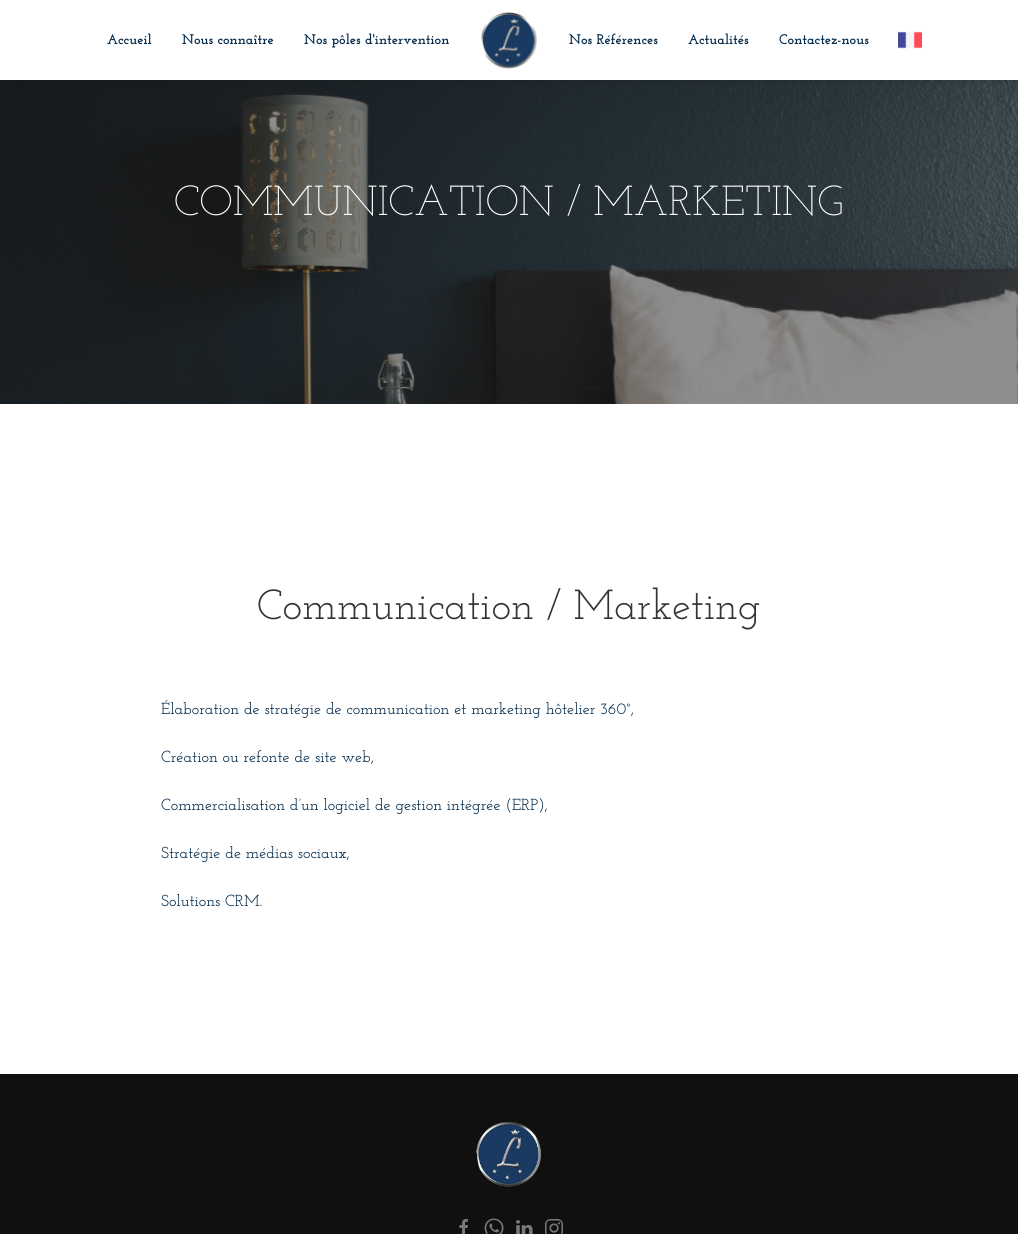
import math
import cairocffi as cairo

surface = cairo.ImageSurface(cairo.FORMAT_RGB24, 1018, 1234)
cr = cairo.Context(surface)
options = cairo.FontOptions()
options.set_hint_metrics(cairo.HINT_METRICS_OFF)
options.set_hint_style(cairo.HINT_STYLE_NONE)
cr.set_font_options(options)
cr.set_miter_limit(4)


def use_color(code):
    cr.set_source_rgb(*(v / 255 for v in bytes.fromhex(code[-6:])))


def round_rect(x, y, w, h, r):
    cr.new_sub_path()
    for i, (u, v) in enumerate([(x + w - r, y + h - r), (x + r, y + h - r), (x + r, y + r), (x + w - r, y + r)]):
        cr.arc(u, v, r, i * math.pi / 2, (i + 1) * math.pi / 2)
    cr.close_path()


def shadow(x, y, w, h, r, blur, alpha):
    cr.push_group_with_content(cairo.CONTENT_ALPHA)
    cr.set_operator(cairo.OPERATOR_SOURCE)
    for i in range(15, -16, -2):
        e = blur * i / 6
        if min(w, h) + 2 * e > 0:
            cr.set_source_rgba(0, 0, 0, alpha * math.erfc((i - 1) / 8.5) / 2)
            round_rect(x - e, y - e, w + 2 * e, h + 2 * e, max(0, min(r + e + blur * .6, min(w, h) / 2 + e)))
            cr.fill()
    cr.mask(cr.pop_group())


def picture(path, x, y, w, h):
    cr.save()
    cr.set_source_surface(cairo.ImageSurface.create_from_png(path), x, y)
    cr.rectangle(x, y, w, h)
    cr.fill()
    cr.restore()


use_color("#ffffff")
cr.paint()
picture("img3.png", 0, 80, 1018, 324)
use_color("#000000")
shadow(0, 2, 1018, 80, 0, 4, 0.08)
use_color("#ffffff")
cr.rectangle(0, 0, 1018, 80)
cr.fill()
cr.select_font_face("Josefin Slab", cairo.FONT_SLANT_NORMAL, cairo.FONT_WEIGHT_BOLD)
cr.set_font_size(14)
use_color("#062d4e")
cr.move_to(107, 44)
cr.show_text("Accueil")
cr.move_to(182, 44)
cr.show_text("Nous connaître")
cr.move_to(304, 44)
cr.show_text("Nos pôles d'intervention")
picture("img1.png", 481, 12, 56, 57)
cr.move_to(569, 44)
cr.show_text("Nos Références")
cr.move_to(688, 44)
cr.show_text("Actualités")
cr.move_to(779, 44)
cr.show_text("Contactez-nous")
picture("img2.png", 898, 31, 24, 18)
cr.select_font_face("Josefin Slab Light")
cr.set_font_size(42)
use_color("#ffffff")
cr.move_to(174, 215)
cr.show_text("COMMUNICATION / MARKETING")
cr.select_font_face("Josefin Slab")
use_color("#333333")
cr.move_to(257, 619)
cr.show_text("Communication / Marketing")
cr.select_font_face("Josefin Slab Medium")
cr.set_font_size(16)
use_color("#062d4e")
cr.move_to(161, 714)
cr.show_text("Élaboration de stratégie de communication et marketing hôtelier 360°,")
cr.move_to(161, 762)
cr.show_text("Création ou refonte de site web,")
cr.move_to(161, 810)
cr.show_text("Commercialisation d’un logiciel de gestion intégrée (ERP),")
cr.move_to(161, 858)
cr.show_text("Stratégie de médias sociaux,")
cr.move_to(161, 906)
cr.show_text("Solutions CRM.")
use_color("#101010")
cr.rectangle(0, 1074, 1018, 160)
cr.fill()
picture("img4.png", 476, 1121, 65, 66)
picture("img5.png", 459, 1219, 9, 15)
picture("img6.png", 484, 1218, 20, 16)
picture("img7.png", 516, 1220, 17, 14)
picture("img8.png", 545, 1219, 18, 15)
surface.write_to_png("result.png")
